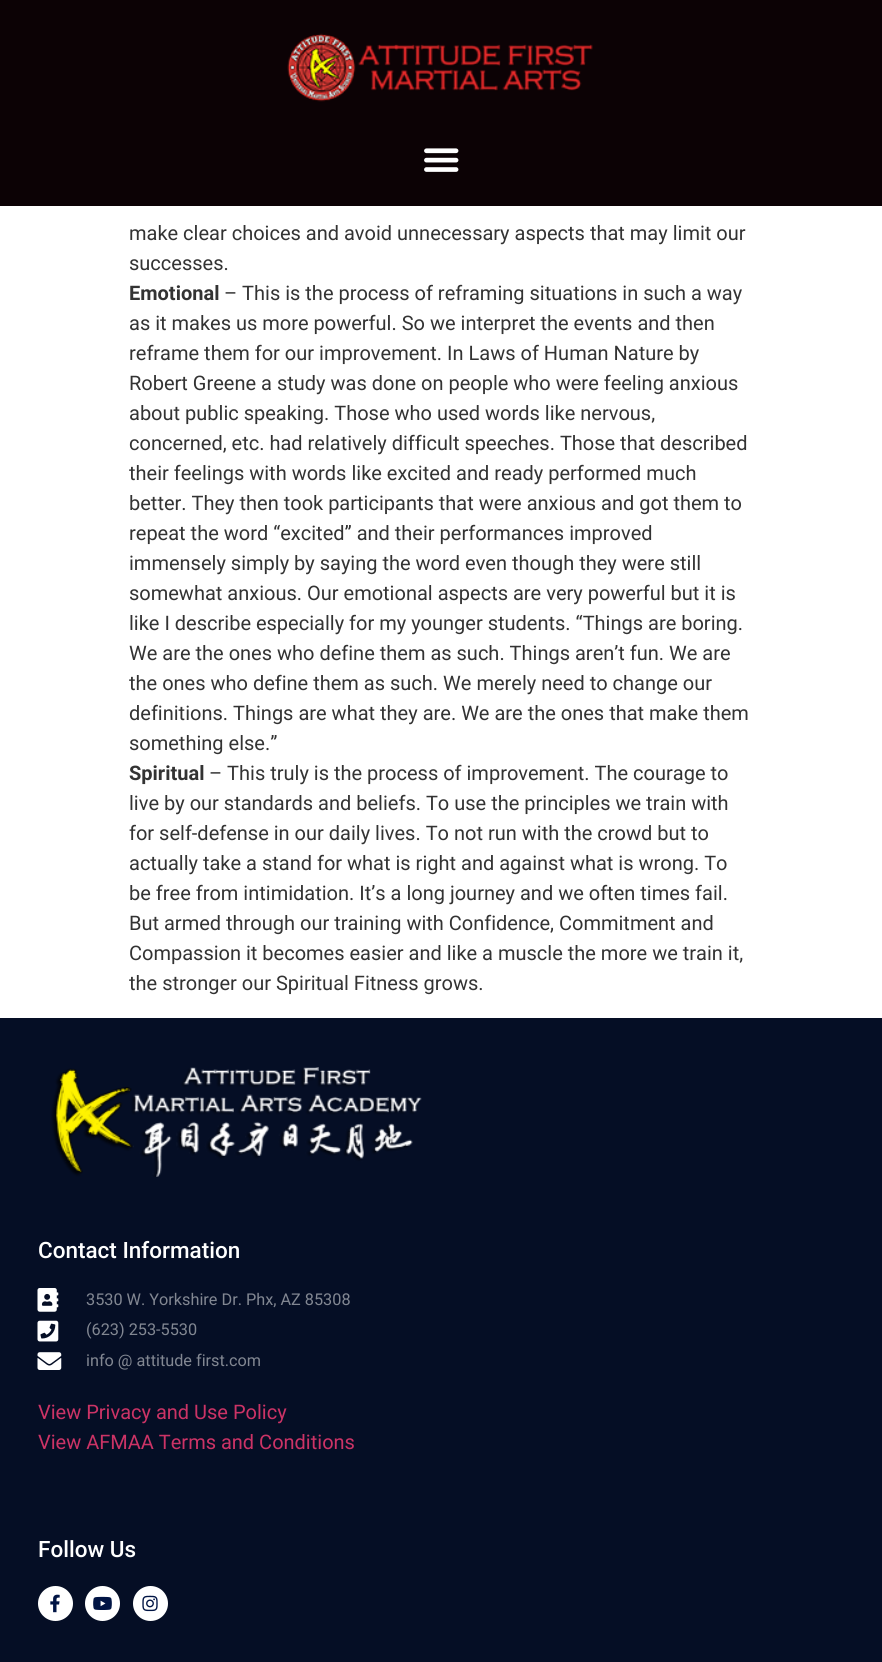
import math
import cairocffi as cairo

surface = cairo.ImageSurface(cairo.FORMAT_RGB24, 882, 1662)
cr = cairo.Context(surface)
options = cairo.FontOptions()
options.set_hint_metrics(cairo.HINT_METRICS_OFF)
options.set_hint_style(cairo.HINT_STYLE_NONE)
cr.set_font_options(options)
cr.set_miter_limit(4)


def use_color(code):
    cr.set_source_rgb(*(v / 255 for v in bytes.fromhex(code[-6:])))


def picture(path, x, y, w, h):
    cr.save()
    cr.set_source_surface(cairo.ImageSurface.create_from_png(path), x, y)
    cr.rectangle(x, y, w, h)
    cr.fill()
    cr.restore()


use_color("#ffffff")
cr.paint()
use_color("#0c0205")
cr.rectangle(0, 0, 882, 206)
cr.fill()
picture("img1.png", 287, 33, 306, 69)
picture("img2.png", 424, 148, 35, 24)
cr.select_font_face("Roboto")
cr.set_font_size(20)
use_color("#333333")
cr.move_to(129, 240)
cr.show_text("make clear choices and avoid unnecessary aspects that may limit our")
cr.move_to(129, 270)
cr.show_text("successes.")
cr.select_font_face("Roboto", cairo.FONT_SLANT_NORMAL, cairo.FONT_WEIGHT_BOLD)
cr.move_to(129, 300)
cr.show_text("Emotional")
cr.select_font_face("Roboto")
cr.move_to(224, 300)
cr.show_text("– This is the process of reframing situations in such a way")
cr.move_to(129, 330)
cr.show_text("as it makes us more powerful. So we interpret the events and then")
cr.move_to(129, 360)
cr.show_text("reframe them for our improvement. In Laws of Human Nature by")
cr.move_to(129, 390)
cr.show_text("Robert Greene a study was done on people who were feeling anxious")
cr.move_to(129, 420)
cr.show_text("about public speaking. Those who used words like nervous,")
cr.move_to(129, 450)
cr.show_text("concerned, etc. had relatively difficult speeches. Those that described")
cr.move_to(129, 480)
cr.show_text("their feelings with words like excited and ready performed much")
cr.move_to(129, 510)
cr.show_text("better. They then took participants that were anxious and got them to")
cr.move_to(129, 540)
cr.show_text("repeat the word “excited” and their performances improved")
cr.move_to(129, 570)
cr.show_text("immensely simply by saying the word even though they were still")
cr.move_to(129, 600)
cr.show_text("somewhat anxious. Our emotional aspects are very powerful but it is")
cr.move_to(129, 630)
cr.show_text("like I describe especially for my younger students. “Things are boring.")
cr.move_to(129, 660)
cr.show_text("We are the ones who define them as such. Things aren’t fun. We are")
cr.move_to(129, 690)
cr.show_text("the ones who define them as such. We merely need to change our")
cr.move_to(129, 720)
cr.show_text("definitions. Things are what they are. We are the ones that make them")
cr.move_to(129, 750)
cr.show_text("something else.”")
cr.select_font_face("Roboto", cairo.FONT_SLANT_NORMAL, cairo.FONT_WEIGHT_BOLD)
cr.move_to(129, 780)
cr.show_text("Spiritual")
cr.select_font_face("Roboto")
cr.move_to(209, 780)
cr.show_text("– This truly is the process of improvement. The courage to")
cr.move_to(129, 810)
cr.show_text("live by our standards and beliefs. To use the principles we train with")
cr.move_to(129, 840)
cr.show_text("for self-defense in our daily lives. To not run with the crowd but to")
cr.move_to(129, 870)
cr.show_text("actually take a stand for what is right and against what is wrong. To")
cr.move_to(129, 900)
cr.show_text("be free from intimidation. It’s a long journey and we often times fail.")
cr.move_to(129, 930)
cr.show_text("But armed through our training with Confidence, Commitment and")
cr.move_to(129, 960)
cr.show_text("Compassion it becomes easier and like a muscle the more we train it,")
cr.move_to(129, 990)
cr.show_text("the stronger our Spiritual Fitness grows.")
use_color("#050e25")
cr.rectangle(0, 1018, 882, 644)
cr.fill()
picture("img3.png", 51, 1067, 371, 110)
cr.select_font_face("Roboto Medium")
cr.set_font_size(22.5)
use_color("#ffffff")
cr.move_to(38, 1258)
cr.show_text("Contact Information")
picture("img4.png", 37, 1288, 22, 24)
cr.select_font_face("Roboto")
cr.set_font_size(16.25)
use_color("#828792")
cr.move_to(86, 1305)
cr.show_text("3530 W. Yorkshire Dr. Phx, AZ 85308")
picture("img5.png", 37, 1320, 22, 22)
cr.move_to(86, 1335)
cr.show_text("(623) 253-5530")
picture("img6.png", 37, 1352, 25, 18)
cr.move_to(86, 1366)
cr.show_text("info @ attitude first.com")
cr.set_font_size(20)
use_color("#cc3366")
cr.move_to(38, 1419)
cr.show_text("View Privacy and Use Policy")
cr.move_to(38, 1449)
cr.show_text("View AFMAA Terms and Conditions")
cr.select_font_face("Roboto Medium")
cr.set_font_size(22.5)
use_color("#ffffff")
cr.move_to(38, 1557)
cr.show_text("Follow Us")
cr.new_path()
cr.arc(55.5, 1603.5, 17.5, 0, 2 * math.pi)
cr.fill()
picture("img7.png", 50, 1594, 10, 19)
cr.arc(102.5, 1603.5, 17.5, 0, 2 * math.pi)
cr.fill()
picture("img8.png", 93, 1596, 19, 14)
cr.arc(150.5, 1603.5, 17.5, 0, 2 * math.pi)
cr.fill()
picture("img9.png", 142, 1595, 16, 17)
surface.write_to_png("result.png")
